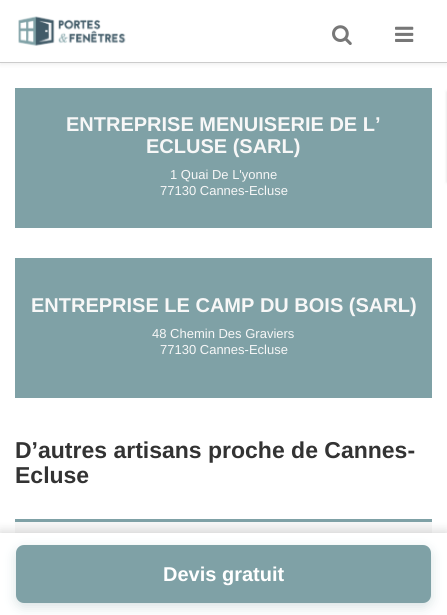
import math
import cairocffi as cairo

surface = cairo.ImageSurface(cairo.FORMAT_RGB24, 447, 615)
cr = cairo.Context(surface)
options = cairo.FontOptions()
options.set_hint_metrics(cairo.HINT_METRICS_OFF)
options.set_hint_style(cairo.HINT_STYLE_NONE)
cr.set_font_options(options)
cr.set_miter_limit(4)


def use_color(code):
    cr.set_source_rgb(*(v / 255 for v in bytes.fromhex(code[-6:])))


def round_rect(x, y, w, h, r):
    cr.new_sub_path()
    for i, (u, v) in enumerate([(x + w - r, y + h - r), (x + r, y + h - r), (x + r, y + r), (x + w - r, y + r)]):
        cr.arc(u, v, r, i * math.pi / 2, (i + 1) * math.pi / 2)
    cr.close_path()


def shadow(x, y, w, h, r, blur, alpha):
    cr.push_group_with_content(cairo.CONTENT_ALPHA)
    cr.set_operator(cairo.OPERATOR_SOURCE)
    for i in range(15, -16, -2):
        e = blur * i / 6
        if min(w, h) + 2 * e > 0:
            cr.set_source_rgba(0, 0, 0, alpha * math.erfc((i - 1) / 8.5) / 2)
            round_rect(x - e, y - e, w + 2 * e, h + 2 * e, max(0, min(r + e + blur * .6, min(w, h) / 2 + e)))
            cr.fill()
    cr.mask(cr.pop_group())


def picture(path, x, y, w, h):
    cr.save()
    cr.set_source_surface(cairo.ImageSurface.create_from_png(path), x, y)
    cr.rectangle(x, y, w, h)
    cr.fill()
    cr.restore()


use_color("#ffffff")
cr.paint()
use_color("#000000")
shadow(0, 2, 447, 63, 0, 2, 0.06)
use_color("#ffffff")
cr.rectangle(0, 0, 447, 62)
cr.fill()
use_color("#cccccc")
cr.rectangle(0, 62, 447, 1)
cr.fill()
picture("img1.png", 18, 16, 108, 30)
picture("img2.png", 332, 25, 20, 20)
picture("img3.png", 395, 26, 19, 16)
use_color("#000000")
shadow(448, 92, 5, 90, 0, 2, 0.24)
use_color("#7fa1a6")
cr.rectangle(15, 88, 417, 140)
cr.fill()
cr.select_font_face("Liberation Sans", cairo.FONT_SLANT_NORMAL, cairo.FONT_WEIGHT_BOLD)
cr.set_font_size(20)
use_color("#f7f7f7")
cr.move_to(66, 131)
cr.show_text("ENTREPRISE MENUISERIE DE L’")
cr.move_to(146, 153)
cr.show_text("ECLUSE (SARL)")
cr.select_font_face("Liberation Sans")
cr.set_font_size(13)
cr.move_to(170, 179)
cr.show_text("1 Quai De L'yonne")
cr.move_to(160, 195)
cr.show_text("77130 Cannes-Ecluse")
use_color("#7fa1a6")
cr.rectangle(15, 258, 417, 140)
cr.fill()
cr.select_font_face("Liberation Sans", cairo.FONT_SLANT_NORMAL, cairo.FONT_WEIGHT_BOLD)
cr.set_font_size(20)
use_color("#f7f7f7")
cr.move_to(31, 312)
cr.show_text("ENTREPRISE LE CAMP DU BOIS (SARL)")
cr.select_font_face("Liberation Sans")
cr.set_font_size(13)
cr.move_to(152, 338)
cr.show_text("48 Chemin Des Graviers")
cr.move_to(160, 354)
cr.show_text("77130 Cannes-Ecluse")
cr.select_font_face("Liberation Sans", cairo.FONT_SLANT_NORMAL, cairo.FONT_WEIGHT_BOLD)
cr.set_font_size(23)
use_color("#333333")
cr.move_to(15, 458)
cr.show_text("D’autres artisans proche de Cannes-")
cr.move_to(15, 483)
cr.show_text("Ecluse")
use_color("#f7f7f7")
cr.rectangle(15, 522, 417, 11)
cr.fill()
use_color("#7fa1a6")
cr.rectangle(15, 519, 417, 3)
cr.fill()
use_color("#000000")
shadow(0, 531, 447, 82, 0, 5, 0.15)
use_color("#ffffff")
cr.rectangle(0, 533, 447, 82)
cr.fill()
use_color("#7fa1a6")
shadow(16, 549, 415, 58, 8, 6, 0.3)
use_color("#7fa1a6")
round_rect(16, 545, 415, 58, 8)
cr.fill()
cr.set_font_size(20)
use_color("#ffffff")
cr.move_to(163, 581)
cr.show_text("Devis gratuit")
surface.write_to_png("result.png")
